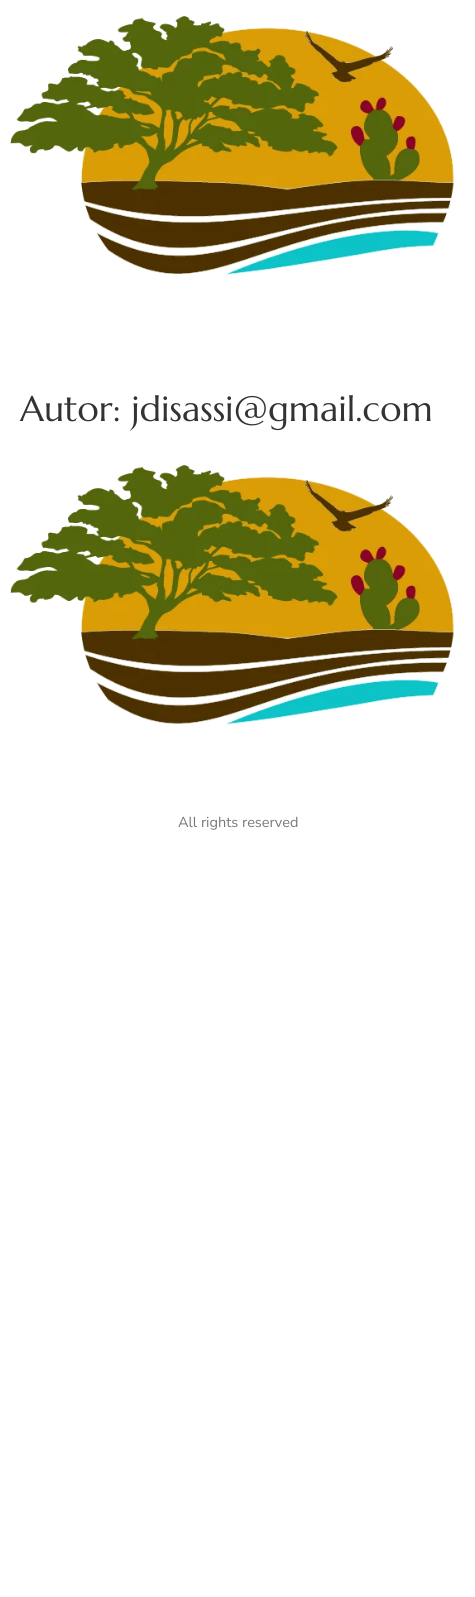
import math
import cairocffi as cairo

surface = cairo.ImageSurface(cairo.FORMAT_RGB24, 475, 1597)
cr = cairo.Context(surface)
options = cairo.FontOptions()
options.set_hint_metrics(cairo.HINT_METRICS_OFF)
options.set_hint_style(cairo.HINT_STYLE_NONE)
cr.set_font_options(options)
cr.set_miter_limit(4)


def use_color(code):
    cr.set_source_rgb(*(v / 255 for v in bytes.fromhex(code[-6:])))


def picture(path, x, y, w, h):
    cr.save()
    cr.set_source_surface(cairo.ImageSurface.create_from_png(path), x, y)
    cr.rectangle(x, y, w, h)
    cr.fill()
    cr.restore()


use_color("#ffffff")
cr.paint()
picture("img1.png", 10, 16, 444, 259)
cr.select_font_face("Marcellus")
cr.set_font_size(35.25)
use_color("#333333")
cr.move_to(20, 421)
cr.show_text("Autor: jdisassi@gmail.com")
picture("img2.png", 10, 465, 444, 260)
cr.select_font_face("Nunito Sans")
cr.set_font_size(14.5)
use_color("#777777")
cr.move_to(178, 827)
cr.show_text("All rights reserved")
surface.write_to_png("result.png")
